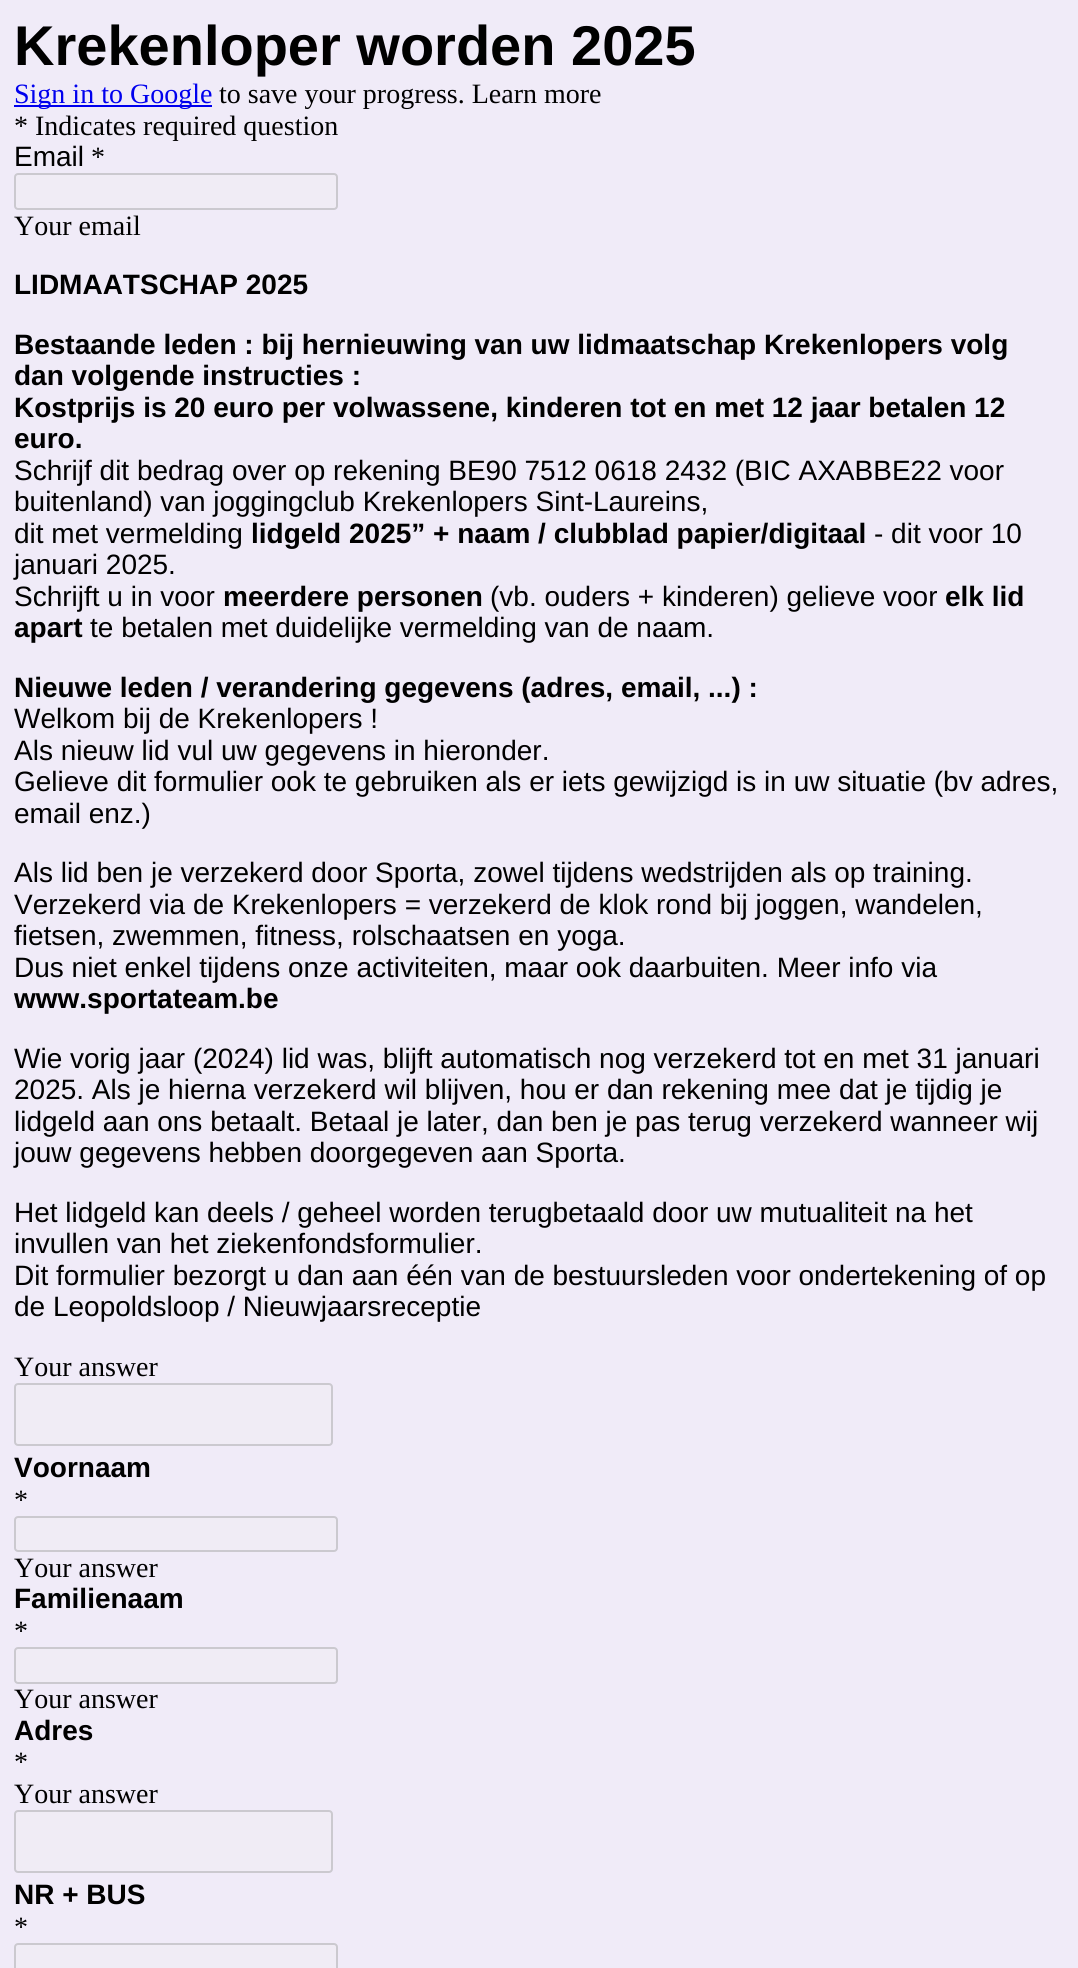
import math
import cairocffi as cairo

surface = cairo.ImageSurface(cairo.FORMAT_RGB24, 1078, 1968)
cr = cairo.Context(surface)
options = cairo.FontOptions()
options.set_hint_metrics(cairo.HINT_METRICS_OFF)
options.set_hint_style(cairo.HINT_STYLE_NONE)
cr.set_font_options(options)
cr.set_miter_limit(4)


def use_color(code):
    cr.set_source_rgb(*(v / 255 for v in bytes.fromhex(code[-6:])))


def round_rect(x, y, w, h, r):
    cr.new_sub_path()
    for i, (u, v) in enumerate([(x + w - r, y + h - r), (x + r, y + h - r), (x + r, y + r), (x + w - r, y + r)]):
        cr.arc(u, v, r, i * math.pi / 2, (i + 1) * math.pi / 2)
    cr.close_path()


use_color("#f0ebf8")
cr.paint()
cr.select_font_face("Liberation Sans", cairo.FONT_SLANT_NORMAL, cairo.FONT_WEIGHT_BOLD)
cr.set_font_size(56)
use_color("#000000")
cr.move_to(14, 65)
cr.show_text("Krekenloper worden 2025")
use_color("#0000ee")
cr.rectangle(14, 105, 198, 2)
cr.fill()
cr.select_font_face("Liberation Serif")
cr.set_font_size(28)
cr.move_to(14, 103)
cr.show_text("Sign in to Google")
use_color("#000000")
cr.move_to(219, 103)
cr.show_text("to save your progress. Learn more")
cr.move_to(14, 135)
cr.show_text("* Indicates required question")
cr.select_font_face("Liberation Sans")
cr.move_to(14, 166)
cr.show_text("Email")
cr.select_font_face("Liberation Serif")
cr.move_to(91, 166)
cr.show_text("*")
use_color("#f0ecf5")
round_rect(15, 174, 322, 35, 3)
cr.fill_preserve()
use_color("#cbc9cf")
cr.stroke()
use_color("#000000")
cr.move_to(14, 235)
cr.show_text("Your email")
cr.select_font_face("Liberation Sans", cairo.FONT_SLANT_NORMAL, cairo.FONT_WEIGHT_BOLD)
cr.move_to(14, 294)
cr.show_text("LIDMAATSCHAP 2025")
cr.move_to(14, 354)
cr.show_text("Bestaande leden : bij hernieuwing van uw lidmaatschap Krekenlopers volg")
cr.move_to(14, 385)
cr.show_text("dan volgende instructies :")
cr.move_to(14, 417)
cr.show_text("Kostprijs is 20 euro per volwassene, kinderen tot en met 12 jaar betalen 12")
cr.move_to(14, 448)
cr.show_text("euro.")
cr.select_font_face("Liberation Sans")
cr.move_to(14, 480)
cr.show_text("Schrijf dit bedrag over op rekening BE90 7512 0618 2432 (BIC AXABBE22 voor")
cr.move_to(14, 511)
cr.show_text("buitenland) van joggingclub Krekenlopers Sint-Laureins,")
cr.move_to(14, 543)
cr.show_text("dit met vermelding")
cr.select_font_face("Liberation Sans", cairo.FONT_SLANT_NORMAL, cairo.FONT_WEIGHT_BOLD)
cr.move_to(251, 543)
cr.show_text("lidgeld 2025” + naam / clubblad papier/digitaal")
cr.select_font_face("Liberation Sans")
cr.move_to(874, 543)
cr.show_text("- dit voor 10")
cr.move_to(14, 574)
cr.show_text("januari 2025.")
cr.move_to(14, 606)
cr.show_text("Schrijft u in voor")
cr.select_font_face("Liberation Sans", cairo.FONT_SLANT_NORMAL, cairo.FONT_WEIGHT_BOLD)
cr.move_to(223, 606)
cr.show_text("meerdere personen")
cr.select_font_face("Liberation Sans")
cr.move_to(490, 606)
cr.show_text("(vb. ouders + kinderen) gelieve voor")
cr.select_font_face("Liberation Sans", cairo.FONT_SLANT_NORMAL, cairo.FONT_WEIGHT_BOLD)
cr.move_to(945, 606)
cr.show_text("elk lid")
cr.move_to(14, 637)
cr.show_text("apart")
cr.select_font_face("Liberation Sans")
cr.move_to(90, 637)
cr.show_text("te betalen met duidelijke vermelding van de naam.")
cr.select_font_face("Liberation Sans", cairo.FONT_SLANT_NORMAL, cairo.FONT_WEIGHT_BOLD)
cr.move_to(14, 697)
cr.show_text("Nieuwe leden / verandering gegevens (adres, email, ...) :")
cr.select_font_face("Liberation Sans")
cr.move_to(14, 728)
cr.show_text("Welkom bij de Krekenlopers !")
cr.move_to(14, 760)
cr.show_text("Als nieuw lid vul uw gegevens in hieronder.")
cr.move_to(14, 791)
cr.show_text("Gelieve dit formulier ook te gebruiken als er iets gewijzigd is in uw situatie (bv adres,")
cr.move_to(14, 823)
cr.show_text("email enz.)")
cr.move_to(14, 882)
cr.show_text("Als lid ben je verzekerd door Sporta, zowel tijdens wedstrijden als op training.")
cr.move_to(14, 914)
cr.show_text("Verzekerd via de Krekenlopers = verzekerd de klok rond bij joggen, wandelen,")
cr.move_to(14, 945)
cr.show_text("fietsen, zwemmen, fitness, rolschaatsen en yoga.")
cr.move_to(14, 977)
cr.show_text("Dus niet enkel tijdens onze activiteiten, maar ook daarbuiten. Meer info via")
cr.select_font_face("Liberation Sans", cairo.FONT_SLANT_NORMAL, cairo.FONT_WEIGHT_BOLD)
cr.move_to(14, 1008)
cr.show_text("www.sportateam.be")
cr.select_font_face("Liberation Sans")
cr.move_to(14, 1068)
cr.show_text("Wie vorig jaar (2024) lid was, blijft automatisch nog verzekerd tot en met 31 januari")
cr.move_to(14, 1099)
cr.show_text("2025. Als je hierna verzekerd wil blijven, hou er dan rekening mee dat je tijdig je")
cr.move_to(14, 1131)
cr.show_text("lidgeld aan ons betaalt. Betaal je later, dan ben je pas terug verzekerd wanneer wij")
cr.move_to(14, 1162)
cr.show_text("jouw gegevens hebben doorgegeven aan Sporta.")
cr.move_to(14, 1222)
cr.show_text("Het lidgeld kan deels / geheel worden terugbetaald door uw mutualiteit na het")
cr.move_to(14, 1253)
cr.show_text("invullen van het ziekenfondsformulier.")
cr.move_to(14, 1285)
cr.show_text("Dit formulier bezorgt u dan aan één van de bestuursleden voor ondertekening of op")
cr.move_to(14, 1316)
cr.show_text("de Leopoldsloop / Nieuwjaarsreceptie")
cr.select_font_face("Liberation Serif")
cr.move_to(14, 1376)
cr.show_text("Your answer")
use_color("#f0ecf5")
round_rect(15, 1384, 317, 61, 3)
cr.fill_preserve()
use_color("#cbc9cf")
cr.stroke()
cr.select_font_face("Liberation Sans", cairo.FONT_SLANT_NORMAL, cairo.FONT_WEIGHT_BOLD)
use_color("#000000")
cr.move_to(14, 1477)
cr.show_text("Voornaam")
cr.select_font_face("Liberation Serif")
cr.move_to(14, 1509)
cr.show_text("*")
use_color("#f0ecf5")
round_rect(15, 1517, 322, 34, 3)
cr.fill_preserve()
use_color("#cbc9cf")
cr.stroke()
use_color("#000000")
cr.move_to(14, 1577)
cr.show_text("Your answer")
cr.select_font_face("Liberation Sans", cairo.FONT_SLANT_NORMAL, cairo.FONT_WEIGHT_BOLD)
cr.move_to(14, 1608)
cr.show_text("Familienaam")
cr.select_font_face("Liberation Serif")
cr.move_to(14, 1640)
cr.show_text("*")
use_color("#f0ecf5")
round_rect(15, 1648, 322, 35, 3)
cr.fill_preserve()
use_color("#cbc9cf")
cr.stroke()
use_color("#000000")
cr.move_to(14, 1708)
cr.show_text("Your answer")
cr.select_font_face("Liberation Sans", cairo.FONT_SLANT_NORMAL, cairo.FONT_WEIGHT_BOLD)
cr.move_to(14, 1740)
cr.show_text("Adres")
cr.select_font_face("Liberation Serif")
cr.move_to(14, 1771)
cr.show_text("*")
cr.move_to(14, 1803)
cr.show_text("Your answer")
use_color("#f0ecf5")
round_rect(15, 1811, 317, 61, 3)
cr.fill_preserve()
use_color("#cbc9cf")
cr.stroke()
cr.select_font_face("Liberation Sans", cairo.FONT_SLANT_NORMAL, cairo.FONT_WEIGHT_BOLD)
use_color("#000000")
cr.move_to(14, 1904)
cr.show_text("NR + BUS")
cr.select_font_face("Liberation Serif")
cr.move_to(14, 1936)
cr.show_text("*")
use_color("#f0ecf5")
round_rect(15, 1944, 322, 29, 3)
cr.fill_preserve()
use_color("#cbc9cf")
cr.stroke()
surface.write_to_png("result.png")
